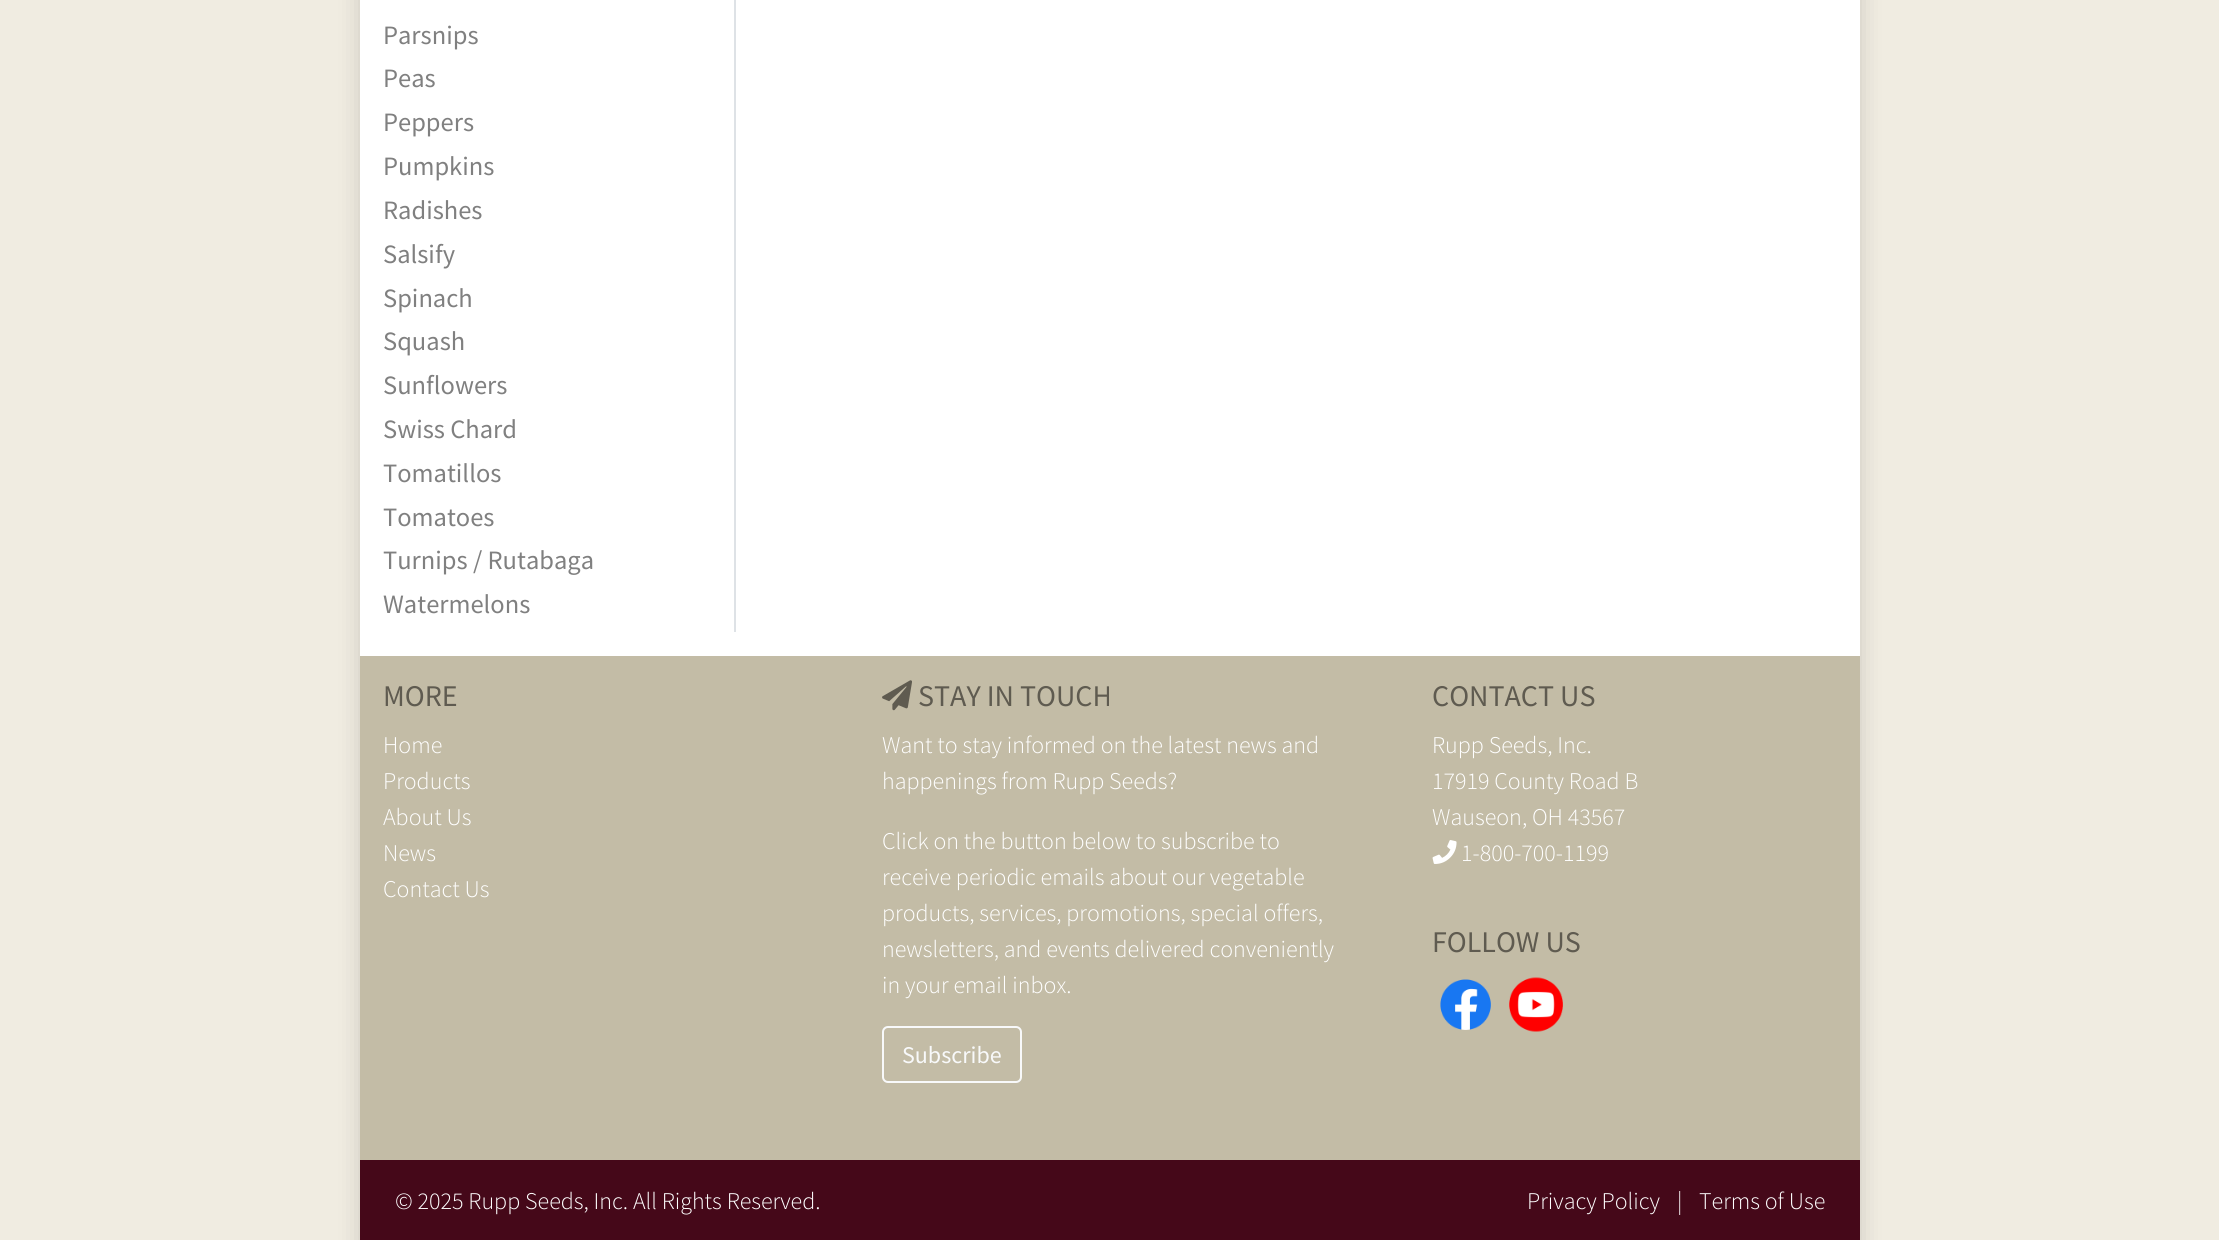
import math
import cairocffi as cairo

surface = cairo.ImageSurface(cairo.FORMAT_RGB24, 2219, 1240)
cr = cairo.Context(surface)
options = cairo.FontOptions()
options.set_hint_metrics(cairo.HINT_METRICS_OFF)
options.set_hint_style(cairo.HINT_STYLE_NONE)
cr.set_font_options(options)
cr.set_miter_limit(4)


def use_color(code):
    cr.set_source_rgb(*(v / 255 for v in bytes.fromhex(code[-6:])))


def round_rect(x, y, w, h, r):
    cr.new_sub_path()
    for i, (u, v) in enumerate([(x + w - r, y + h - r), (x + r, y + h - r), (x + r, y + r), (x + w - r, y + r)]):
        cr.arc(u, v, r, i * math.pi / 2, (i + 1) * math.pi / 2)
    cr.close_path()


def shadow(x, y, w, h, r, blur, alpha):
    cr.push_group_with_content(cairo.CONTENT_ALPHA)
    cr.set_operator(cairo.OPERATOR_SOURCE)
    for i in range(15, -16, -2):
        e = blur * i / 6
        if min(w, h) + 2 * e > 0:
            cr.set_source_rgba(0, 0, 0, alpha * math.erfc((i - 1) / 8.5) / 2)
            round_rect(x - e, y - e, w + 2 * e, h + 2 * e, max(0, min(r + e + blur * .6, min(w, h) / 2 + e)))
            cr.fill()
    cr.mask(cr.pop_group())


def picture(path, x, y, w, h):
    cr.save()
    cr.set_source_surface(cairo.ImageSurface.create_from_png(path), x, y)
    cr.rectangle(x, y, w, h)
    cr.fill()
    cr.restore()


use_color("#f0ece1")
cr.paint()
use_color("#000000")
shadow(360, -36, 1500, 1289, 0, 12, 0.15)
use_color("#ffffff")
cr.rectangle(360, 0, 1500, 656)
cr.fill()
use_color("#dee2e6")
cr.rectangle(734, 0, 2, 632)
cr.fill()
cr.select_font_face("Source Sans Pro")
cr.set_font_size(26.5)
use_color("#808080")
cr.move_to(383, 44)
cr.show_text("Parsnips")
cr.move_to(383, 87)
cr.show_text("Peas")
cr.move_to(383, 131)
cr.show_text("Peppers")
cr.move_to(383, 175)
cr.show_text("Pumpkins")
cr.move_to(383, 219)
cr.show_text("Radishes")
cr.move_to(383, 263)
cr.show_text("Salsify")
cr.move_to(383, 307)
cr.show_text("Spinach")
cr.move_to(383, 350)
cr.show_text("Squash")
cr.move_to(383, 394)
cr.show_text("Sunflowers")
cr.move_to(383, 438)
cr.show_text("Swiss Chard")
cr.move_to(383, 482)
cr.show_text("Tomatillos")
cr.move_to(383, 526)
cr.show_text("Tomatoes")
cr.move_to(383, 569)
cr.show_text("Turnips / Rutabaga")
cr.move_to(383, 613)
cr.show_text("Watermelons")
use_color("#c3bca6")
cr.rectangle(360, 656, 1500, 504)
cr.fill()
cr.set_font_size(30)
use_color("#5f5b50")
cr.move_to(383, 706)
cr.show_text("MORE")
cr.select_font_face("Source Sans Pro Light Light")
cr.set_font_size(24)
use_color("#ffffff")
cr.move_to(383, 753)
cr.show_text("Home")
cr.move_to(383, 789)
cr.show_text("Products")
cr.move_to(383, 825)
cr.show_text("About Us")
cr.move_to(383, 861)
cr.show_text("News")
cr.move_to(383, 897)
cr.show_text("Contact Us")
picture("img1.png", 882, 680, 30, 31)
cr.select_font_face("Source Sans Pro")
cr.set_font_size(30)
use_color("#5f5b50")
cr.move_to(918, 706)
cr.show_text("STAY IN TOUCH")
cr.select_font_face("Source Sans Pro Light Light")
cr.set_font_size(24)
use_color("#ffffff")
cr.move_to(882, 753)
cr.show_text("Want to stay informed on the latest news and")
cr.move_to(882, 789)
cr.show_text("happenings from Rupp Seeds?")
cr.move_to(882, 849)
cr.show_text("Click on the button below to subscribe to")
cr.move_to(882, 885)
cr.show_text("receive periodic emails about our vegetable")
cr.move_to(882, 921)
cr.show_text("products, services, promotions, special offers,")
cr.move_to(882, 957)
cr.show_text("newsletters, and events delivered conveniently")
cr.move_to(882, 993)
cr.show_text("in your email inbox.")
round_rect(883, 1027, 138, 55, 5)
use_color("#f8f9fa")
cr.stroke()
cr.select_font_face("Source Sans Pro")
cr.move_to(902, 1063)
cr.show_text("Subscribe")
cr.set_font_size(30)
use_color("#5f5b50")
cr.move_to(1432, 706)
cr.show_text("CONTACT US")
cr.select_font_face("Source Sans Pro Light Light")
cr.set_font_size(24)
use_color("#ffffff")
cr.move_to(1432, 753)
cr.show_text("Rupp Seeds, Inc.")
cr.move_to(1432, 789)
cr.show_text("17919 County Road B")
cr.move_to(1432, 825)
cr.show_text("Wauseon, OH 43567")
picture("img2.png", 1432, 840, 25, 24)
cr.move_to(1461, 861)
cr.show_text("1-800-700-1199")
cr.select_font_face("Source Sans Pro")
cr.set_font_size(30)
use_color("#5f5b50")
cr.move_to(1432, 952)
cr.show_text("FOLLOW US")
picture("img3.png", 1440, 979, 51, 51)
picture("img4.png", 1509, 977, 54, 55)
use_color("#450819")
cr.rectangle(360, 1160, 1500, 80)
cr.fill()
cr.select_font_face("Source Sans Pro Light Light")
cr.set_font_size(24)
use_color("#ffffff")
cr.move_to(395, 1209)
cr.show_text("© 2025 Rupp Seeds, Inc. All Rights Reserved.")
cr.move_to(1527, 1209)
cr.show_text("Privacy Policy")
cr.move_to(1677, 1209)
cr.show_text("|")
cr.move_to(1699, 1209)
cr.show_text("Terms of Use")
surface.write_to_png("result.png")
